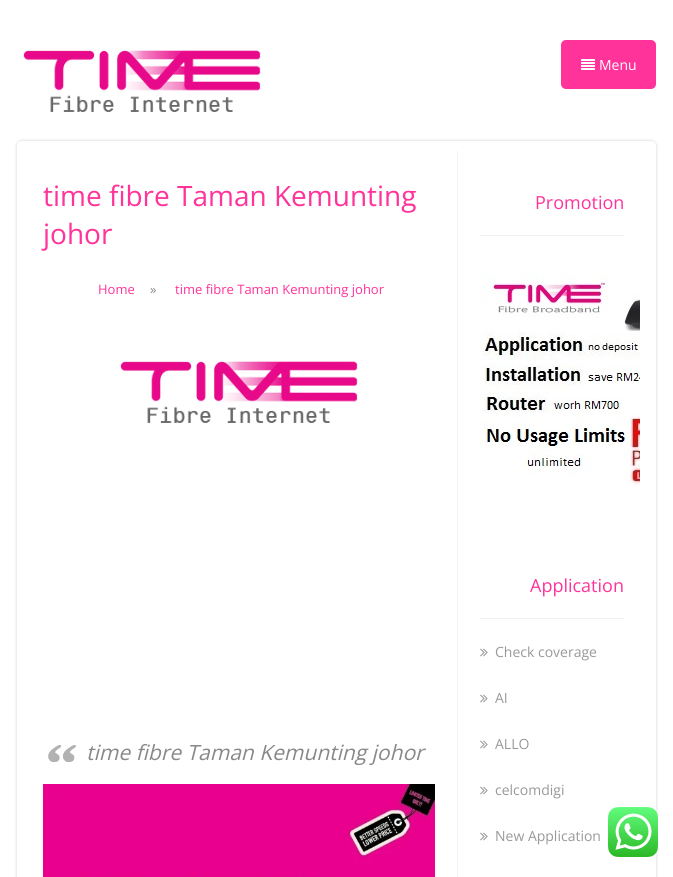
import math
import cairocffi as cairo

surface = cairo.ImageSurface(cairo.FORMAT_RGB24, 673, 877)
cr = cairo.Context(surface)
options = cairo.FontOptions()
options.set_hint_metrics(cairo.HINT_METRICS_OFF)
options.set_hint_style(cairo.HINT_STYLE_NONE)
cr.set_font_options(options)
cr.set_miter_limit(4)


def use_color(code):
    cr.set_source_rgb(*(v / 255 for v in bytes.fromhex(code[-6:])))


def round_rect(x, y, w, h, r):
    cr.new_sub_path()
    for i, (u, v) in enumerate([(x + w - r, y + h - r), (x + r, y + h - r), (x + r, y + r), (x + w - r, y + r)]):
        cr.arc(u, v, r, i * math.pi / 2, (i + 1) * math.pi / 2)
    cr.close_path()


def shadow(x, y, w, h, r, blur, alpha):
    cr.push_group_with_content(cairo.CONTENT_ALPHA)
    cr.set_operator(cairo.OPERATOR_SOURCE)
    for i in range(15, -16, -2):
        e = blur * i / 6
        if min(w, h) + 2 * e > 0:
            cr.set_source_rgba(0, 0, 0, alpha * math.erfc((i - 1) / 8.5) / 2)
            round_rect(x - e, y - e, w + 2 * e, h + 2 * e, max(0, min(r + e + blur * .6, min(w, h) / 2 + e)))
            cr.fill()
    cr.mask(cr.pop_group())


def picture(path, x, y, w, h):
    cr.save()
    cr.set_source_surface(cairo.ImageSurface.create_from_png(path), x, y)
    cr.rectangle(x, y, w, h)
    cr.fill()
    cr.restore()


use_color("#ffffff")
cr.paint()
picture("img1.png", 23, 45, 238, 67)
use_color("#ff3399")
round_rect(561, 40, 95, 49, 5)
cr.fill()
picture("img2.png", 581, 59, 14, 11)
cr.select_font_face("Open Sans")
cr.set_font_size(14)
use_color("#ffffff")
cr.move_to(599, 70)
cr.show_text("Menu")
use_color("#000000")
shadow(17, 141, 639, 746, 5, 1.5, 0.2)
use_color("#ffffff")
cr.new_path()
cr.move_to(22, 141)
cr.line_to(651, 141)
cr.curve_to(654, 141, 656, 143, 656, 146)
cr.line_to(656, 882)
cr.line_to(17, 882)
cr.line_to(17, 146)
cr.curve_to(17, 143, 19, 141, 22, 141)
cr.close_path()
cr.fill()
cr.set_font_size(28)
use_color("#ff3399")
cr.move_to(43, 206)
cr.show_text("time fibre Taman Kemunting")
cr.move_to(43, 244)
cr.show_text("johor")
cr.set_font_size(13)
cr.move_to(98, 294)
cr.show_text("Home")
use_color("#888888")
cr.move_to(150, 294)
cr.show_text("»")
use_color("#ff3399")
cr.move_to(175, 294)
cr.show_text("time fibre Taman Kemunting johor")
picture("img3.png", 120, 356, 238, 67)
picture("img4.png", 48, 745, 28, 17)
cr.select_font_face("Open Sans", cairo.FONT_SLANT_ITALIC)
cr.set_font_size(21)
use_color("#888888")
cr.move_to(86, 760)
cr.show_text("time fibre Taman Kemunting johor")
picture("img5.png", 43, 784, 392, 93)
use_color("#f2f2f2")
cr.rectangle(457, 151, 1, 726)
cr.fill()
cr.rectangle(480, 235, 144, 1)
cr.fill()
cr.select_font_face("Open Sans")
cr.set_font_size(18)
use_color("#ff3399")
cr.move_to(535, 209)
cr.show_text("Promotion")
picture("img6.png", 480, 272, 160, 214)
use_color("#f2f2f2")
cr.rectangle(480, 618, 144, 1)
cr.fill()
use_color("#ff3399")
cr.move_to(530, 592)
cr.show_text("Application")
picture("img7.png", 480, 648, 8, 9)
cr.set_font_size(14)
use_color("#999999")
cr.move_to(495, 657)
cr.show_text("Check coverage")
picture("img7.png", 480, 694, 8, 9)
cr.move_to(495, 703)
cr.show_text("AI")
picture("img7.png", 480, 740, 8, 9)
cr.move_to(495, 749)
cr.show_text("ALLO")
picture("img7.png", 480, 786, 8, 9)
cr.move_to(495, 795)
cr.show_text("celcomdigi")
picture("img7.png", 480, 832, 8, 9)
cr.move_to(495, 841)
cr.show_text("New Application")
picture("img8.png", 608, 807, 50, 50)
surface.write_to_png("result.png")
